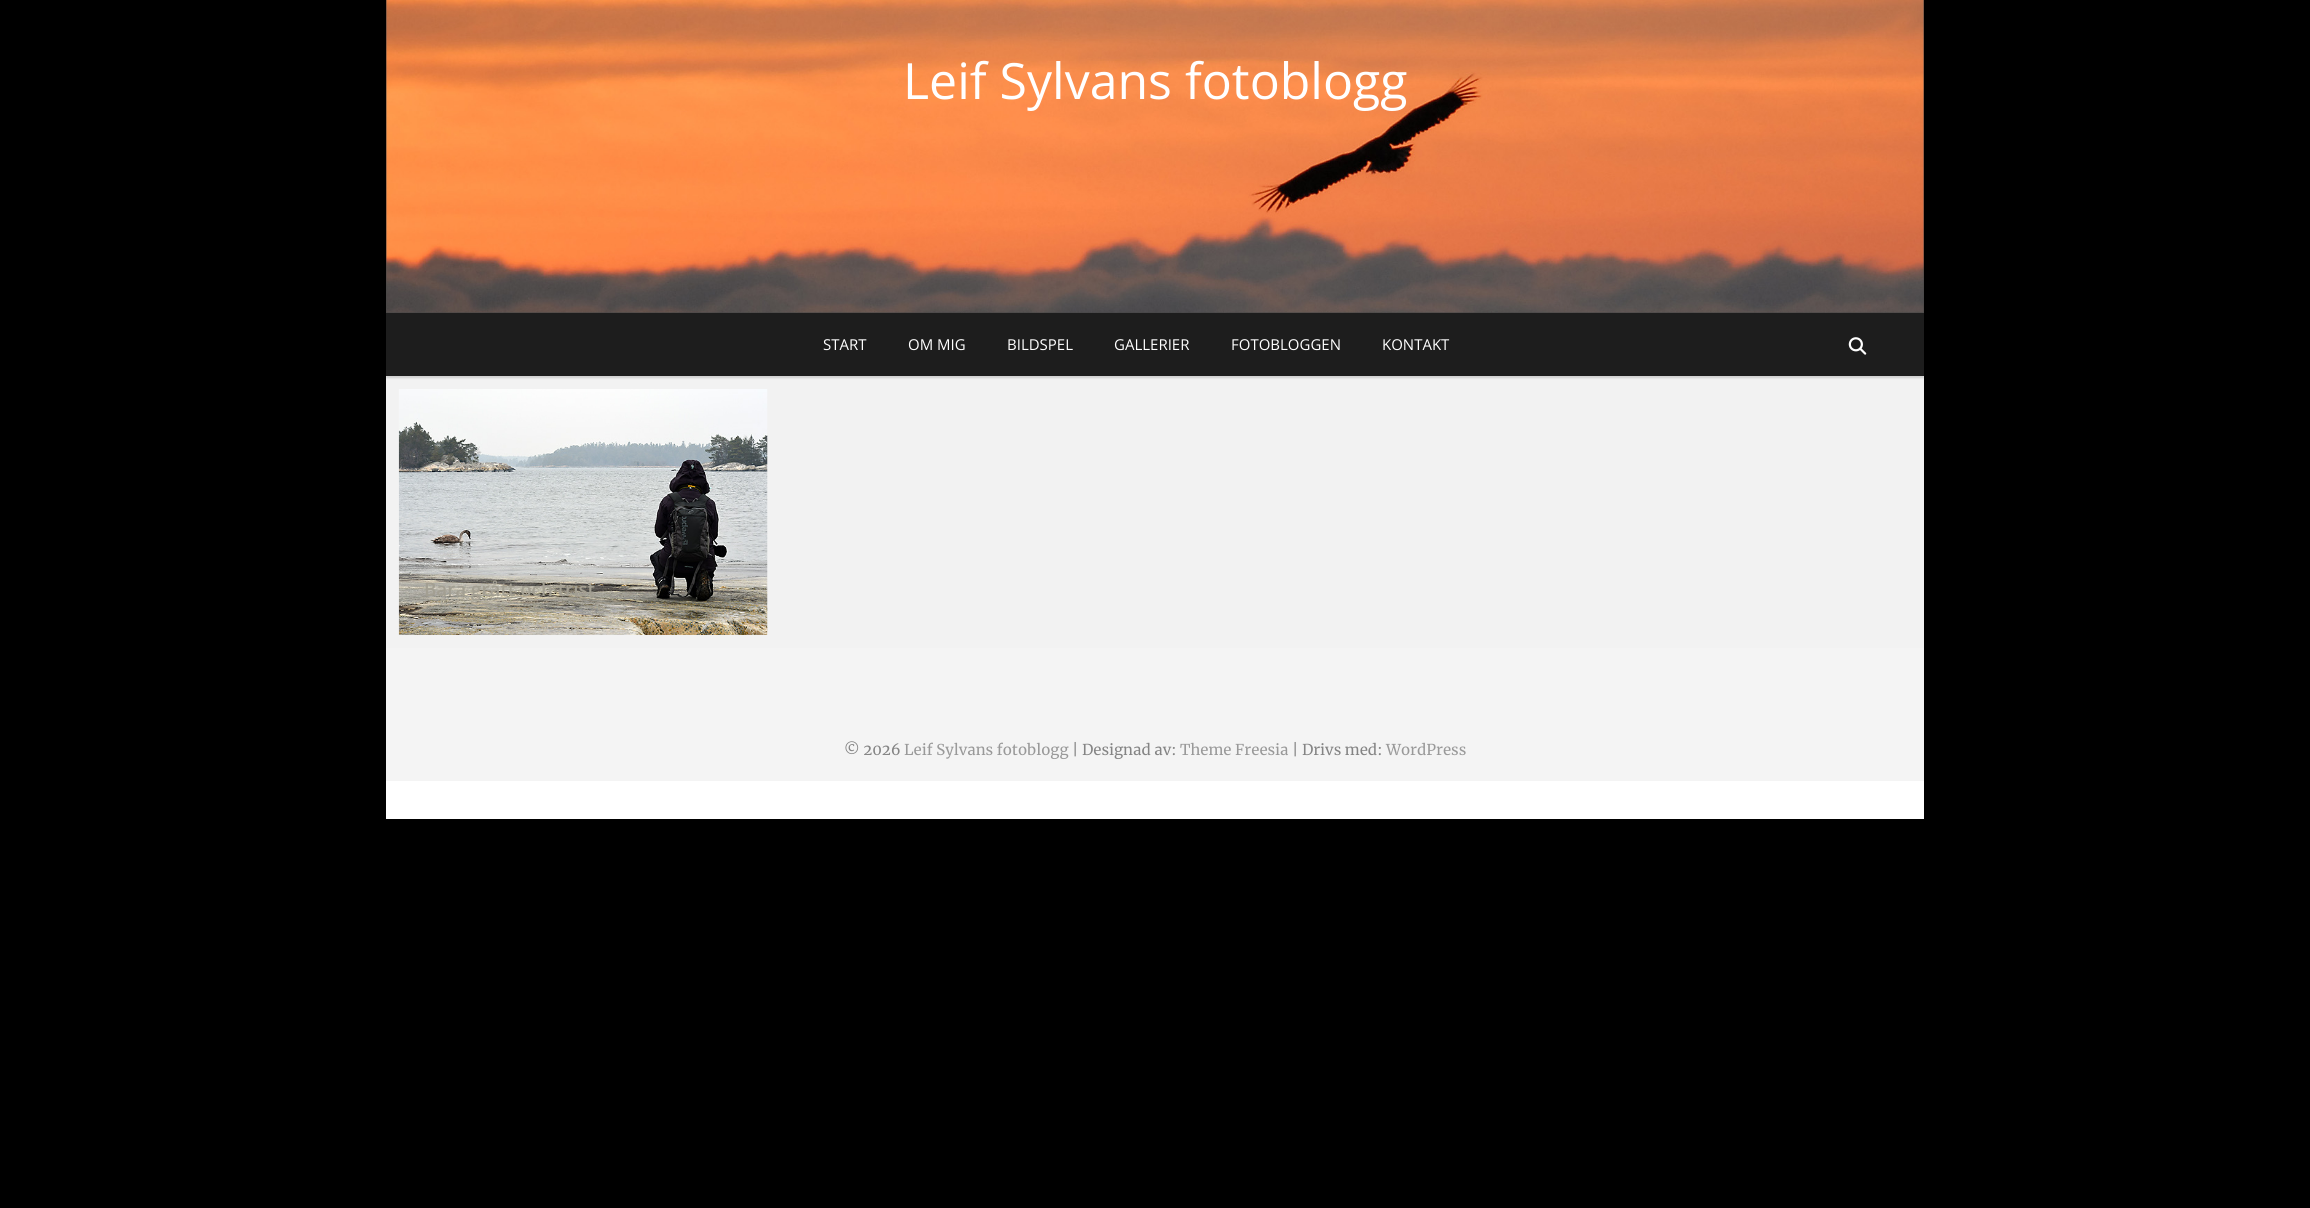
import math
import cairocffi as cairo

surface = cairo.ImageSurface(cairo.FORMAT_RGB24, 2310, 1208)
cr = cairo.Context(surface)
options = cairo.FontOptions()
options.set_hint_metrics(cairo.HINT_METRICS_OFF)
options.set_hint_style(cairo.HINT_STYLE_NONE)
cr.set_font_options(options)
cr.set_miter_limit(4)


def use_color(code):
    cr.set_source_rgb(*(v / 255 for v in bytes.fromhex(code[-6:])))


def round_rect(x, y, w, h, r):
    cr.new_sub_path()
    for i, (u, v) in enumerate([(x + w - r, y + h - r), (x + r, y + h - r), (x + r, y + r), (x + w - r, y + r)]):
        cr.arc(u, v, r, i * math.pi / 2, (i + 1) * math.pi / 2)
    cr.close_path()


def shadow(x, y, w, h, r, blur, alpha):
    cr.push_group_with_content(cairo.CONTENT_ALPHA)
    cr.set_operator(cairo.OPERATOR_SOURCE)
    for i in range(15, -16, -2):
        e = blur * i / 6
        if min(w, h) + 2 * e > 0:
            cr.set_source_rgba(0, 0, 0, alpha * math.erfc((i - 1) / 8.5) / 2)
            round_rect(x - e, y - e, w + 2 * e, h + 2 * e, max(0, min(r + e + blur * .6, min(w, h) / 2 + e)))
            cr.fill()
    cr.mask(cr.pop_group())


def picture(path, x, y, w, h):
    cr.save()
    cr.set_source_surface(cairo.ImageSurface.create_from_png(path), x, y)
    cr.rectangle(x, y, w, h)
    cr.fill()
    cr.restore()


use_color("#000000")
cr.paint()
use_color("#ffffff")
cr.rectangle(386, 781, 1538, 38)
cr.fill()
use_color("#484848")
cr.rectangle(386, 0, 1538, 313)
cr.fill()
picture("img1.png", 386, 0, 1538, 313)
cr.select_font_face("Open Sans")
cr.set_font_size(50)
use_color("#ffffff")
cr.move_to(903, 99)
cr.show_text("Leif Sylvans fotoblogg")
use_color("#f2f2f2")
cr.rectangle(386, 376, 1538, 272)
cr.fill()
use_color("#000000")
shadow(386, 314, 1538, 64, 0, 1, 0.15)
use_color("#1d1d1d")
cr.rectangle(386, 313, 1538, 63)
cr.fill()
cr.set_font_size(15)
use_color("#ffffff")
cr.move_to(823, 350)
cr.show_text("START")
cr.move_to(908, 350)
cr.show_text("OM MIG")
cr.move_to(1007, 350)
cr.show_text("BILDSPEL")
cr.move_to(1114, 350)
cr.show_text("GALLERIER")
cr.move_to(1231, 350)
cr.show_text("FOTOBLOGGEN")
cr.move_to(1382, 350)
cr.show_text("KONTAKT")
picture("img2.png", 1848, 337, 19, 18)
picture("img3.png", 398, 389, 370, 246)
cr.select_font_face("Open Sans SemiBold")
cr.set_font_size(18.75)
use_color("#a39f92")
cr.move_to(424, 596)
cr.show_text("Bara grått och trist")
use_color("#f4f4f4")
cr.rectangle(386, 648, 1538, 133)
cr.fill()
cr.select_font_face("Merriweather")
cr.set_font_size(15)
use_color("#848484")
cr.move_to(844, 755)
cr.show_text("© 2026")
use_color("#999999")
cr.move_to(904, 755)
cr.show_text("Leif Sylvans fotoblogg")
use_color("#848484")
cr.move_to(1072, 755)
cr.show_text("| Designad av:")
use_color("#999999")
cr.move_to(1180, 755)
cr.show_text("Theme Freesia")
use_color("#848484")
cr.move_to(1292, 755)
cr.show_text("| Drivs med:")
use_color("#999999")
cr.move_to(1386, 755)
cr.show_text("WordPress")
surface.write_to_png("result.png")
